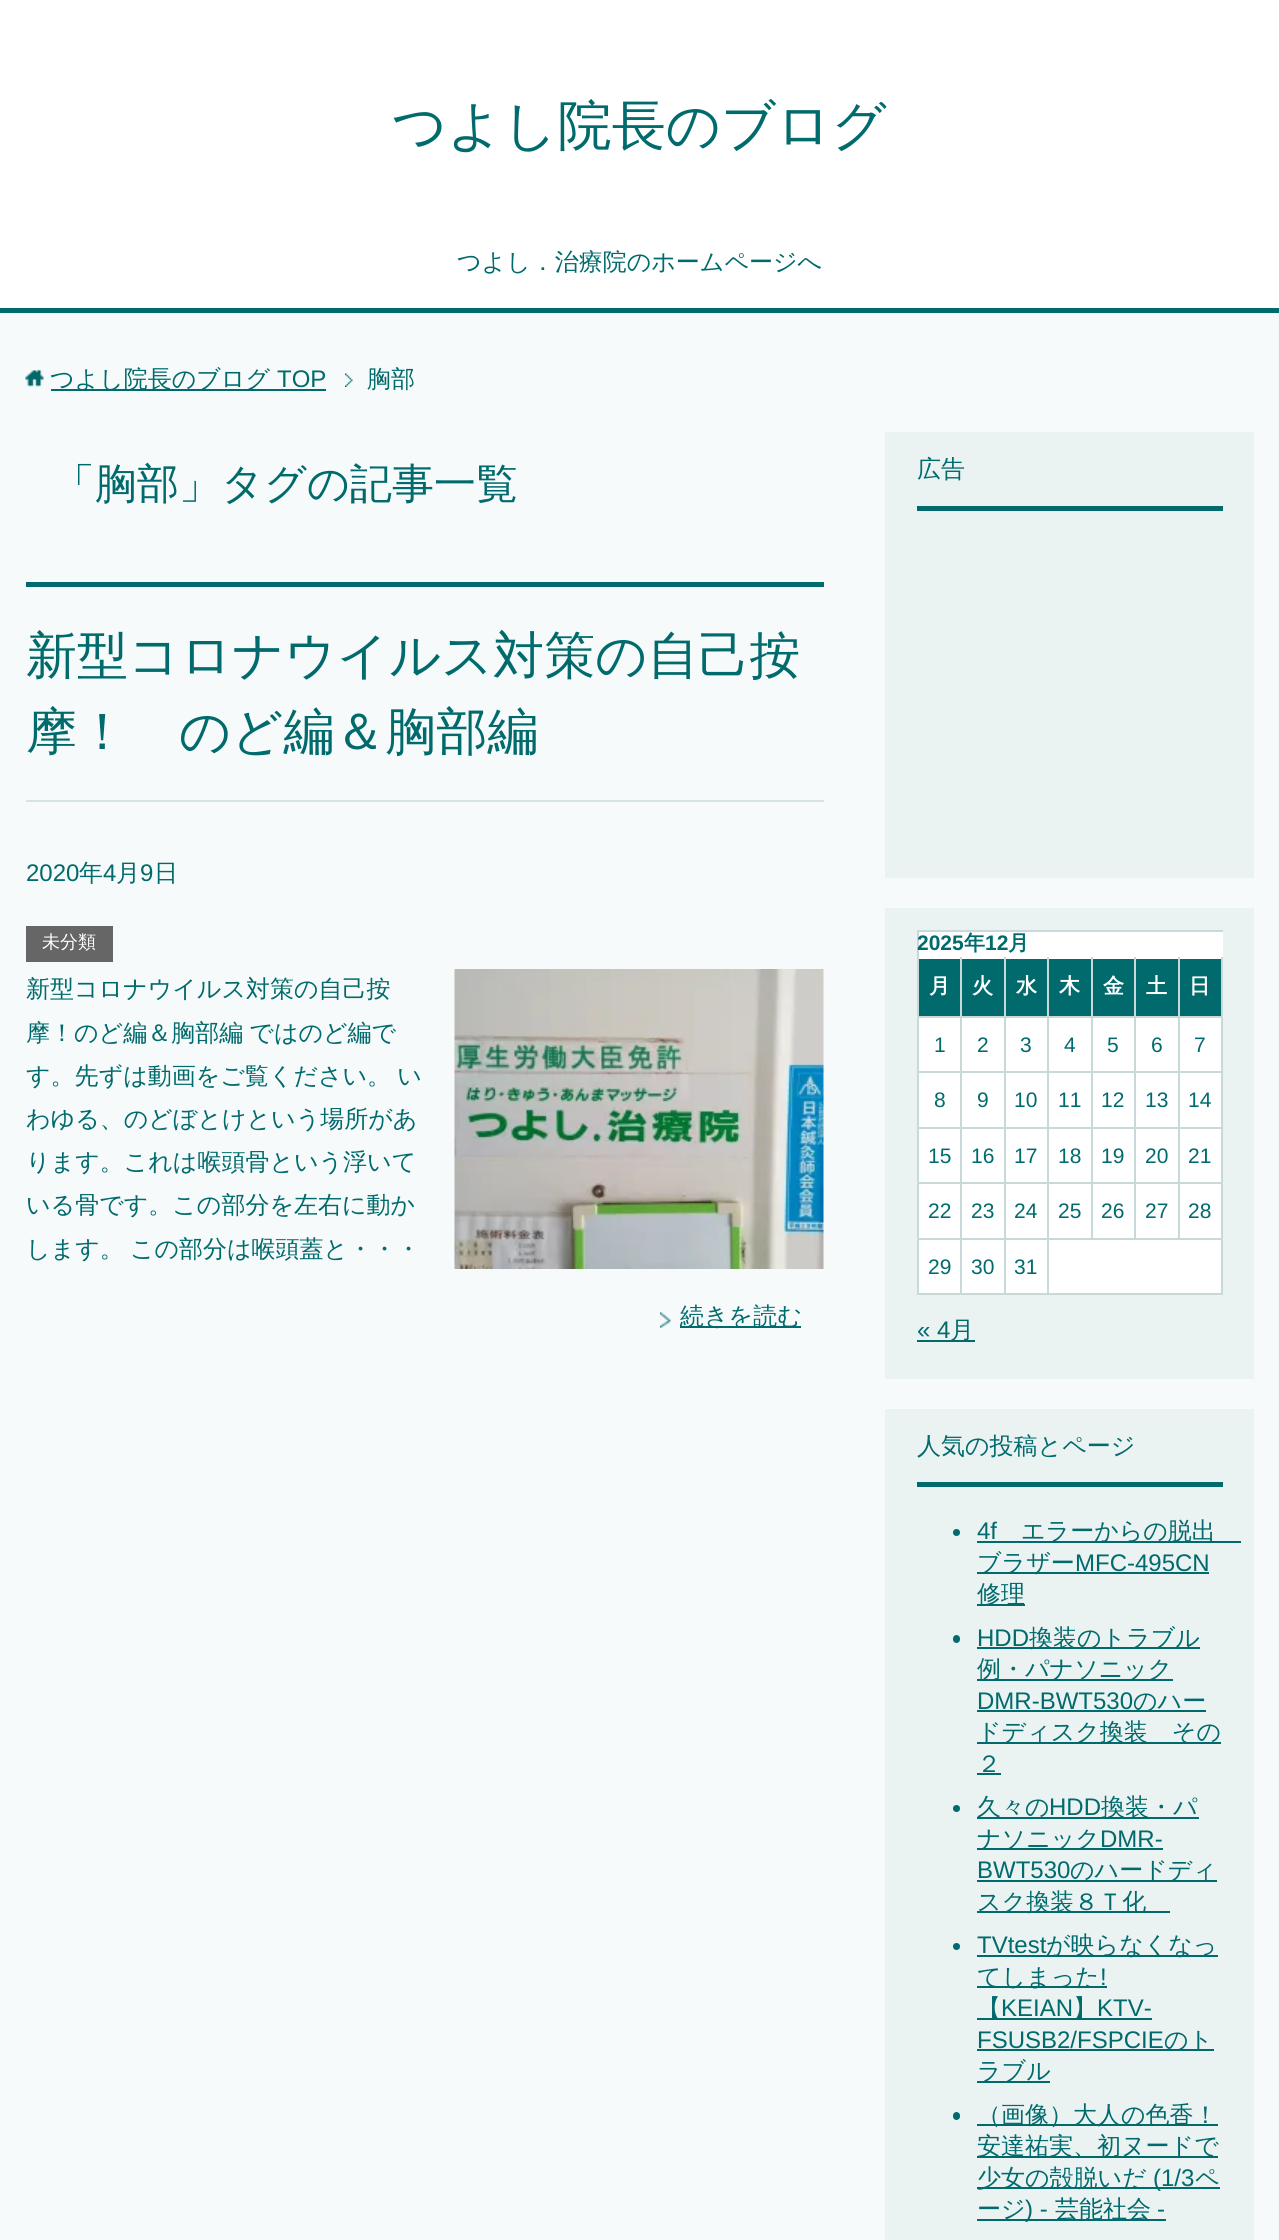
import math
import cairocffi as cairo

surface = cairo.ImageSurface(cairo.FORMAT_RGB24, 1279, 2240)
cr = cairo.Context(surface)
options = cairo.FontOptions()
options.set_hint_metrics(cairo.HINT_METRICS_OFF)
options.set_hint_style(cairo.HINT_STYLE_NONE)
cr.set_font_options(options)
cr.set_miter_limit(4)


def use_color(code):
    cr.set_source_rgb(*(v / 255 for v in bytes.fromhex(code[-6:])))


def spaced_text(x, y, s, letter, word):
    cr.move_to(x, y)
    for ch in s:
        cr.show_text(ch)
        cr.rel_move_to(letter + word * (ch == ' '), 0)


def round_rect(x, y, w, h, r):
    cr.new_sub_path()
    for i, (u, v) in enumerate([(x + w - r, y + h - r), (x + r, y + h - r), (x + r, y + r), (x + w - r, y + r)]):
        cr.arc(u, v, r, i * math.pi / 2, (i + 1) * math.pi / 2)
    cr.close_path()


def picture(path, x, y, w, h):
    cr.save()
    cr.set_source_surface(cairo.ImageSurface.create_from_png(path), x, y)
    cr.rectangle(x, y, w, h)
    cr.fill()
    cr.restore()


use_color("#f6fafa")
cr.paint()
use_color("#ffffff")
cr.rectangle(0, 0, 1279, 224)
cr.fill()
cr.select_font_face("WenQuanYi Zen Hei Medium")
cr.set_font_size(54)
use_color("#006a6c")
cr.move_to(392, 144)
cr.show_text("つよし院長のブログ")
use_color("#ffffff")
cr.rectangle(0, 224, 1279, 84)
cr.fill()
use_color("#006a6c")
cr.rectangle(0, 308, 1279, 5)
cr.fill()
cr.set_font_size(24)
cr.move_to(457, 270)
cr.show_text("つよし．治療院のホームページへ")
picture("img1.png", 345, 373, 8, 14)
picture("img2.png", 25, 369, 19, 18)
cr.rectangle(51, 389, 219, 2)
cr.fill()
cr.move_to(50, 387)
cr.show_text("つよし院長のブログ")
cr.select_font_face("Liberation Sans")
cr.move_to(277, 387)
cr.show_text("TOP")
cr.rectangle(270, 389, 56, 2)
cr.fill()
cr.select_font_face("WenQuanYi Zen Hei Medium")
cr.move_to(367, 387)
cr.show_text("胸部")
cr.set_font_size(42)
cr.move_to(53, 498)
cr.show_text("「胸部」タグの記事一覧")
cr.rectangle(26, 582, 798, 5)
cr.fill()
use_color("#d4e3e3")
cr.rectangle(26, 800, 798, 2)
cr.fill()
cr.set_font_size(51)
use_color("#006a6c")
cr.move_to(26, 673)
cr.show_text("新型コロナウイルス対策の自己按")
cr.move_to(26, 749)
cr.show_text("摩！　のど編＆胸部編")
cr.select_font_face("Liberation Sans")
cr.set_font_size(24)
cr.move_to(26, 881)
cr.show_text("2020")
cr.select_font_face("WenQuanYi Zen Hei Medium")
cr.move_to(79, 881)
cr.show_text("年")
cr.select_font_face("Liberation Sans")
cr.move_to(103, 881)
cr.show_text("4")
cr.select_font_face("WenQuanYi Zen Hei Medium")
cr.move_to(116, 881)
cr.show_text("月")
cr.select_font_face("Liberation Sans")
cr.move_to(140, 881)
cr.show_text("9")
cr.select_font_face("WenQuanYi Zen Hei Medium")
cr.move_to(154, 881)
cr.show_text("日")
use_color("#666666")
cr.rectangle(26, 926, 87, 36)
cr.fill()
cr.set_font_size(18)
use_color("#ffffff")
cr.move_to(42, 948)
cr.show_text("未分類")
cr.set_font_size(24)
use_color("#006a6c")
cr.move_to(26, 997)
cr.show_text("新型コロナウイルス対策の自己按")
spaced_text(26, 1041, "摩！のど編＆胸部編 ではのど編で", 0, -1)
spaced_text(26, 1084, "す。先ずは動画をご覧ください。 い", 0, -1)
cr.move_to(26, 1127)
cr.show_text("わゆる、のどぼとけという場所があ")
cr.move_to(26, 1170)
cr.show_text("ります。これは喉頭骨という浮いて")
cr.move_to(26, 1213)
cr.show_text("いる骨です。この部分を左右に動か")
spaced_text(26, 1257, "します。 この部分は喉頭蓋と・・・", 0, -1)
picture("img3.png", 454, 969, 370, 300)
picture("img4.png", 660, 1312, 11, 16)
cr.rectangle(680, 1326, 121, 2)
cr.fill()
cr.move_to(680, 1324)
cr.show_text("続きを読む")
use_color("#eaf2f2")
cr.rectangle(885, 432, 369, 446)
cr.fill()
use_color("#006a6c")
cr.rectangle(917, 506, 306, 5)
cr.fill()
cr.move_to(917, 477)
cr.show_text("広告")
use_color("#eaf2f2")
cr.rectangle(885, 908, 369, 471)
cr.fill()
use_color("#ffffff")
cr.rectangle(919, 932, 304, 361)
cr.fill()
use_color("#c8d9d9")
cr.rectangle(917, 930, 306, 2)
cr.fill()
cr.rectangle(917, 930, 2, 365)
cr.fill()
cr.select_font_face("Liberation Sans", cairo.FONT_SLANT_NORMAL, cairo.FONT_WEIGHT_BOLD)
cr.set_font_size(21)
use_color("#006a6c")
cr.move_to(917, 950)
cr.show_text("2025")
cr.select_font_face("WenQuanYi Zen Hei", cairo.FONT_SLANT_NORMAL, cairo.FONT_WEIGHT_BOLD)
cr.move_to(964, 950)
cr.show_text("年")
cr.select_font_face("Liberation Sans", cairo.FONT_SLANT_NORMAL, cairo.FONT_WEIGHT_BOLD)
cr.move_to(985, 950)
cr.show_text("12")
cr.select_font_face("WenQuanYi Zen Hei", cairo.FONT_SLANT_NORMAL, cairo.FONT_WEIGHT_BOLD)
cr.move_to(1008, 950)
cr.show_text("月")
cr.rectangle(919, 959, 41, 57)
cr.fill()
use_color("#c8d9d9")
cr.rectangle(1221, 957, 2, 338)
cr.fill()
cr.rectangle(1178, 1238, 45, 2)
cr.fill()
cr.rectangle(1178, 1182, 2, 57)
cr.fill()
cr.rectangle(1178, 1182, 45, 2)
cr.fill()
cr.rectangle(1178, 1127, 2, 57)
cr.fill()
cr.rectangle(1178, 1127, 45, 2)
cr.fill()
cr.rectangle(1178, 1071, 2, 57)
cr.fill()
cr.rectangle(1178, 1071, 45, 2)
cr.fill()
cr.rectangle(1178, 1016, 2, 57)
cr.fill()
cr.rectangle(1178, 1016, 45, 2)
cr.fill()
cr.rectangle(1178, 957, 2, 60)
cr.fill()
cr.rectangle(1134, 1238, 45, 2)
cr.fill()
cr.rectangle(1134, 1182, 2, 57)
cr.fill()
cr.rectangle(1134, 1182, 45, 2)
cr.fill()
cr.rectangle(1134, 1127, 2, 57)
cr.fill()
cr.rectangle(1134, 1127, 45, 2)
cr.fill()
cr.rectangle(1134, 1071, 2, 57)
cr.fill()
cr.rectangle(1134, 1071, 45, 2)
cr.fill()
cr.rectangle(1134, 1016, 2, 57)
cr.fill()
cr.rectangle(1134, 1016, 45, 2)
cr.fill()
cr.rectangle(1134, 957, 2, 60)
cr.fill()
cr.rectangle(1091, 1238, 45, 2)
cr.fill()
cr.rectangle(1091, 1182, 2, 57)
cr.fill()
cr.rectangle(1091, 1182, 45, 2)
cr.fill()
cr.rectangle(1091, 1127, 2, 57)
cr.fill()
cr.rectangle(1091, 1127, 45, 2)
cr.fill()
cr.rectangle(1091, 1071, 2, 57)
cr.fill()
cr.rectangle(1091, 1071, 45, 2)
cr.fill()
cr.rectangle(1091, 1016, 2, 57)
cr.fill()
cr.rectangle(1091, 1016, 45, 2)
cr.fill()
cr.rectangle(1091, 957, 2, 60)
cr.fill()
cr.rectangle(1047, 1293, 176, 2)
cr.fill()
cr.rectangle(1047, 1238, 2, 57)
cr.fill()
cr.rectangle(1047, 1238, 45, 2)
cr.fill()
cr.rectangle(1047, 1182, 2, 57)
cr.fill()
cr.rectangle(1047, 1182, 45, 2)
cr.fill()
cr.rectangle(1047, 1127, 2, 57)
cr.fill()
cr.rectangle(1047, 1127, 45, 2)
cr.fill()
cr.rectangle(1047, 1071, 2, 57)
cr.fill()
cr.rectangle(1047, 1071, 45, 2)
cr.fill()
cr.rectangle(1047, 1016, 2, 57)
cr.fill()
cr.rectangle(1047, 1016, 45, 2)
cr.fill()
cr.rectangle(1047, 957, 2, 60)
cr.fill()
cr.rectangle(1004, 1293, 45, 2)
cr.fill()
cr.rectangle(1004, 1238, 2, 57)
cr.fill()
cr.rectangle(1004, 1238, 45, 2)
cr.fill()
cr.rectangle(1004, 1182, 2, 57)
cr.fill()
cr.rectangle(1004, 1182, 45, 2)
cr.fill()
cr.rectangle(1004, 1127, 2, 57)
cr.fill()
cr.rectangle(1004, 1127, 45, 2)
cr.fill()
cr.rectangle(1004, 1071, 2, 57)
cr.fill()
cr.rectangle(1004, 1071, 45, 2)
cr.fill()
cr.rectangle(1004, 1016, 2, 57)
cr.fill()
cr.rectangle(1004, 1016, 45, 2)
cr.fill()
cr.rectangle(1004, 957, 2, 60)
cr.fill()
cr.rectangle(960, 1293, 45, 2)
cr.fill()
cr.rectangle(960, 1238, 2, 57)
cr.fill()
cr.rectangle(960, 1238, 45, 2)
cr.fill()
cr.rectangle(960, 1182, 2, 57)
cr.fill()
cr.rectangle(960, 1182, 45, 2)
cr.fill()
cr.rectangle(960, 1127, 2, 57)
cr.fill()
cr.rectangle(960, 1127, 45, 2)
cr.fill()
cr.rectangle(960, 1071, 2, 57)
cr.fill()
cr.rectangle(960, 1071, 45, 2)
cr.fill()
cr.rectangle(960, 1016, 2, 57)
cr.fill()
cr.rectangle(960, 1016, 45, 2)
cr.fill()
cr.rectangle(960, 957, 2, 60)
cr.fill()
cr.rectangle(917, 1016, 45, 2)
cr.fill()
use_color("#ffffff")
cr.move_to(929, 993)
cr.show_text("月")
use_color("#006a6c")
cr.rectangle(962, 959, 42, 57)
cr.fill()
use_color("#ffffff")
cr.move_to(972, 993)
cr.show_text("火")
use_color("#006a6c")
cr.rectangle(1006, 959, 41, 57)
cr.fill()
use_color("#ffffff")
cr.move_to(1016, 993)
cr.show_text("水")
use_color("#006a6c")
cr.rectangle(1049, 959, 42, 57)
cr.fill()
use_color("#ffffff")
cr.move_to(1059, 993)
cr.show_text("木")
use_color("#006a6c")
cr.rectangle(1093, 959, 41, 57)
cr.fill()
use_color("#ffffff")
cr.move_to(1103, 993)
cr.show_text("金")
use_color("#006a6c")
cr.rectangle(1136, 959, 42, 57)
cr.fill()
use_color("#ffffff")
cr.move_to(1146, 993)
cr.show_text("土")
use_color("#006a6c")
cr.rectangle(1180, 959, 41, 57)
cr.fill()
use_color("#ffffff")
cr.move_to(1189, 993)
cr.show_text("日")
use_color("#c8d9d9")
cr.rectangle(917, 1071, 45, 2)
cr.fill()
cr.select_font_face("Liberation Sans")
use_color("#006a6c")
cr.move_to(934, 1052)
cr.show_text("1")
cr.move_to(977, 1052)
cr.show_text("2")
cr.move_to(1020, 1052)
cr.show_text("3")
cr.move_to(1064, 1052)
cr.show_text("4")
cr.move_to(1107, 1052)
cr.show_text("5")
cr.move_to(1151, 1052)
cr.show_text("6")
cr.move_to(1194, 1052)
cr.show_text("7")
use_color("#c8d9d9")
cr.rectangle(917, 1127, 45, 2)
cr.fill()
use_color("#006a6c")
cr.move_to(934, 1107)
cr.show_text("8")
cr.move_to(977, 1107)
cr.show_text("9")
cr.move_to(1014, 1107)
cr.show_text("10")
cr.move_to(1058, 1107)
cr.show_text("11")
cr.move_to(1101, 1107)
cr.show_text("12")
cr.move_to(1145, 1107)
cr.show_text("13")
cr.move_to(1188, 1107)
cr.show_text("14")
use_color("#c8d9d9")
cr.rectangle(917, 1182, 45, 2)
cr.fill()
use_color("#006a6c")
cr.move_to(928, 1163)
cr.show_text("15")
cr.move_to(971, 1163)
cr.show_text("16")
cr.move_to(1014, 1163)
cr.show_text("17")
cr.move_to(1058, 1163)
cr.show_text("18")
cr.move_to(1101, 1163)
cr.show_text("19")
cr.move_to(1145, 1163)
cr.show_text("20")
cr.move_to(1188, 1163)
cr.show_text("21")
use_color("#c8d9d9")
cr.rectangle(917, 1238, 45, 2)
cr.fill()
use_color("#006a6c")
cr.move_to(928, 1218)
cr.show_text("22")
cr.move_to(971, 1218)
cr.show_text("23")
cr.move_to(1014, 1218)
cr.show_text("24")
cr.move_to(1058, 1218)
cr.show_text("25")
cr.move_to(1101, 1218)
cr.show_text("26")
cr.move_to(1145, 1218)
cr.show_text("27")
cr.move_to(1188, 1218)
cr.show_text("28")
use_color("#c8d9d9")
cr.rectangle(917, 1293, 45, 2)
cr.fill()
use_color("#006a6c")
cr.move_to(928, 1274)
cr.show_text("29")
cr.move_to(971, 1274)
cr.show_text("30")
cr.move_to(1014, 1274)
cr.show_text("31")
cr.set_font_size(24)
cr.move_to(917, 1338)
cr.show_text("« 4")
cr.rectangle(917, 1340, 58, 2)
cr.fill()
cr.select_font_face("WenQuanYi Zen Hei Medium")
cr.move_to(950, 1338)
cr.show_text("月")
use_color("#eaf2f2")
cr.rectangle(885, 1409, 369, 831)
cr.fill()
use_color("#006a6c")
cr.rectangle(917, 1482, 306, 5)
cr.fill()
cr.move_to(917, 1454)
cr.show_text("人気の投稿とページ")
cr.new_path()
cr.arc(956.5, 1532.5, 3.5, 0, 2 * math.pi)
cr.fill()
cr.select_font_face("Liberation Sans")
cr.move_to(977, 1539)
cr.show_text("4f")
cr.rectangle(977, 1541, 264, 2)
cr.fill()
cr.select_font_face("WenQuanYi Zen Hei Medium")
cr.move_to(1021, 1539)
cr.show_text("エラーからの脱出")
cr.rectangle(977, 1572, 232, 2)
cr.fill()
cr.move_to(977, 1571)
cr.show_text("ブラザー")
cr.select_font_face("Liberation Sans")
cr.move_to(1075, 1571)
cr.show_text("MFC-495CN")
cr.rectangle(977, 1604, 48, 2)
cr.fill()
cr.select_font_face("WenQuanYi Zen Hei Medium")
cr.move_to(977, 1602)
cr.show_text("修理")
round_rect(953, 1635, 7, 8, 3.5)
cr.fill()
cr.select_font_face("Liberation Sans")
cr.move_to(977, 1646)
cr.show_text("HDD")
cr.rectangle(977, 1647, 223, 2)
cr.fill()
cr.select_font_face("WenQuanYi Zen Hei Medium")
cr.move_to(1029, 1646)
cr.show_text("換装のトラブル")
cr.rectangle(977, 1679, 196, 2)
cr.fill()
cr.move_to(977, 1677)
cr.show_text("例・パナソニック")
cr.select_font_face("Liberation Sans")
cr.move_to(977, 1709)
cr.show_text("DMR-BWT530")
cr.rectangle(977, 1710, 229, 2)
cr.fill()
cr.select_font_face("WenQuanYi Zen Hei Medium")
cr.move_to(1133, 1709)
cr.show_text("のハー")
cr.rectangle(977, 1742, 244, 2)
cr.fill()
cr.move_to(977, 1740)
cr.show_text("ドディスク換装　その")
cr.move_to(977, 1772)
cr.show_text("２")
cr.rectangle(977, 1773, 24, 2)
cr.fill()
cr.arc(956.5, 1808.5, 3.5, 0, 2 * math.pi)
cr.fill()
cr.rectangle(977, 1817, 222, 2)
cr.fill()
cr.move_to(977, 1815)
cr.show_text("久々の")
cr.select_font_face("Liberation Sans")
cr.move_to(1049, 1815)
cr.show_text("HDD")
cr.select_font_face("WenQuanYi Zen Hei Medium")
cr.move_to(1101, 1815)
cr.show_text("換装・パ")
cr.rectangle(977, 1848, 186, 2)
cr.fill()
cr.move_to(977, 1847)
cr.show_text("ナソニック")
cr.select_font_face("Liberation Sans")
cr.move_to(1100, 1847)
cr.show_text("DMR-")
cr.move_to(977, 1878)
cr.show_text("BWT530")
cr.rectangle(977, 1880, 240, 2)
cr.fill()
cr.select_font_face("WenQuanYi Zen Hei Medium")
cr.move_to(1070, 1878)
cr.show_text("のハードディ")
cr.rectangle(977, 1911, 193, 2)
cr.fill()
cr.move_to(977, 1910)
cr.show_text("スク換装８Ｔ化")
cr.new_path()
cr.arc(956.5, 1946.5, 3.5, 0, 2 * math.pi)
cr.fill()
cr.select_font_face("Liberation Sans")
cr.move_to(977, 1953)
cr.show_text("TVtest")
cr.rectangle(977, 1955, 241, 2)
cr.fill()
cr.select_font_face("WenQuanYi Zen Hei Medium")
cr.move_to(1046, 1953)
cr.show_text("が映らなくなっ")
cr.rectangle(977, 1986, 130, 2)
cr.fill()
cr.move_to(977, 1985)
cr.show_text("てしまった")
cr.select_font_face("Liberation Sans")
cr.move_to(1100, 1985)
cr.show_text("!")
cr.rectangle(977, 2018, 175, 2)
cr.fill()
cr.select_font_face("WenQuanYi Zen Hei Medium")
cr.move_to(977, 2016)
cr.show_text("【")
cr.select_font_face("Liberation Sans")
cr.move_to(1001, 2016)
cr.show_text("KEIAN")
cr.select_font_face("WenQuanYi Zen Hei Medium")
cr.move_to(1073, 2016)
cr.show_text("】")
cr.select_font_face("Liberation Sans")
cr.move_to(1097, 2016)
cr.show_text("KTV-")
cr.move_to(977, 2048)
cr.show_text("FSUSB2/FSPCIE")
cr.rectangle(977, 2049, 237, 2)
cr.fill()
cr.select_font_face("WenQuanYi Zen Hei Medium")
cr.move_to(1164, 2048)
cr.show_text("のト")
cr.rectangle(977, 2081, 73, 2)
cr.fill()
cr.move_to(977, 2079)
cr.show_text("ラブル")
round_rect(953, 2112, 7, 8, 3.5)
cr.fill()
cr.rectangle(977, 2124, 241, 2)
cr.fill()
cr.move_to(977, 2123)
cr.show_text("（画像）大人の色香！")
cr.rectangle(977, 2156, 241, 2)
cr.fill()
cr.move_to(977, 2154)
cr.show_text("安達祐実、初ヌードで")
cr.rectangle(977, 2187, 243, 2)
cr.fill()
cr.move_to(977, 2186)
cr.show_text("少女の殻脱いだ")
cr.select_font_face("Liberation Sans")
cr.move_to(1153, 2186)
cr.show_text("(1/3")
cr.select_font_face("WenQuanYi Zen Hei Medium")
cr.move_to(1195, 2186)
cr.show_text("ペ")
cr.rectangle(977, 2219, 189, 2)
cr.fill()
cr.move_to(977, 2217)
cr.show_text("ージ")
cr.select_font_face("Liberation Sans")
cr.move_to(1025, 2217)
cr.show_text(") -")
cr.select_font_face("WenQuanYi Zen Hei Medium")
cr.move_to(1055, 2217)
cr.show_text("芸能社会")
cr.select_font_face("Liberation Sans")
cr.move_to(1157, 2217)
cr.show_text("-")
surface.write_to_png("result.png")
